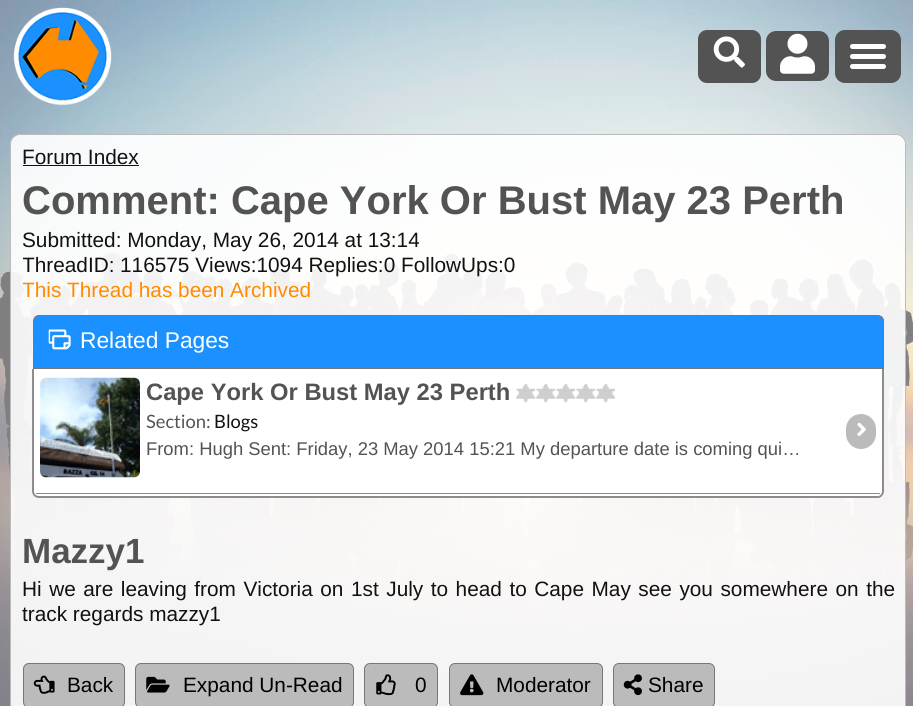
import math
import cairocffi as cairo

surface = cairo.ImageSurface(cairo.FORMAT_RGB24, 913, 706)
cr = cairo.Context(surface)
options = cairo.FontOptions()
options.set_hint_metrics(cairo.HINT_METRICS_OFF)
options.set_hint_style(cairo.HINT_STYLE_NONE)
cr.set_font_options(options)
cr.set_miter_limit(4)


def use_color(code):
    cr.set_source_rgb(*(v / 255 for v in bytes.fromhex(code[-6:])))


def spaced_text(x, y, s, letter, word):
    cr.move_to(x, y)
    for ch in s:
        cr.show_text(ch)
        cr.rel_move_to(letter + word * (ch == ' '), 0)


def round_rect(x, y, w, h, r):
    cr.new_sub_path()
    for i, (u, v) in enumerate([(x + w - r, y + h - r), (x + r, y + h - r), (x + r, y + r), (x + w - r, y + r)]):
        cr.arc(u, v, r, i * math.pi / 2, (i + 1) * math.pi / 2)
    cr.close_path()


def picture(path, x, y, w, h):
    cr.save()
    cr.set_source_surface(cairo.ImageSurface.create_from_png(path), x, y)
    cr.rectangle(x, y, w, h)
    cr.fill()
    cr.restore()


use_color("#ffffff")
cr.paint()
picture("img1.png", 0, 0, 913, 706)
picture("img2.png", 13, 7, 99, 99)
use_color("#535353")
round_rect(698, 30, 63, 53, 9)
cr.fill()
picture("img3.png", 713, 36, 32, 32)
round_rect(766, 31, 63, 50, 10)
cr.fill()
picture("img4.png", 780, 33, 35, 41)
round_rect(835, 30, 66, 53, 10)
cr.fill()
use_color("#ffffff")
round_rect(850, 54, 36, 5, 2.5)
cr.fill()
round_rect(850, 44, 36, 5, 2.5)
cr.fill()
round_rect(850, 64, 36, 5, 2.5)
cr.fill()
cr.set_source_rgba(1, 1, 1, 0.9)
round_rect(10.5, 134.5, 895, 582, 9.5)
cr.fill_preserve()
use_color("#bbbbbb")
cr.set_line_width(1)
cr.stroke()
cr.select_font_face("Liberation Sans")
cr.set_font_size(20.8)
use_color("#111111")
cr.move_to(22, 164)
cr.show_text("Forum Index")
cr.rectangle(23, 165, 116, 1)
cr.fill()
cr.select_font_face("Liberation Sans", cairo.FONT_SLANT_NORMAL, cairo.FONT_WEIGHT_BOLD)
cr.set_font_size(40)
use_color("#535353")
cr.move_to(22, 214)
cr.show_text("Comment: Cape York Or Bust May 23 Perth")
cr.select_font_face("Liberation Sans")
cr.set_font_size(20.8)
use_color("#111111")
cr.move_to(22, 247)
cr.show_text("Submitted: Monday, May 26, 2014 at 13:14")
cr.save()
cr.rectangle(23, 170, 872, 471)
cr.clip()
cr.move_to(22, 272)
cr.show_text("ThreadID:")
cr.restore()
cr.move_to(120, 272)
cr.show_text("116575 Views:1094 Replies:0 FollowUps:0")
cr.save()
cr.rectangle(23, 170, 872, 471)
cr.clip()
use_color("#ff8c00")
cr.move_to(22, 297)
cr.show_text("This Thread has been Archived")
cr.restore()
use_color("#1b91ff")
cr.new_path()
cr.move_to(39, 315.5)
cr.line_to(878, 315.5)
cr.curve_to(881, 315.5, 883.5, 318, 883.5, 321)
cr.line_to(883.5, 368.5)
cr.line_to(33.5, 368.5)
cr.line_to(33.5, 321)
cr.curve_to(33.5, 318, 36, 315.5, 39, 315.5)
cr.close_path()
cr.fill_preserve()
use_color("#777777")
cr.stroke()
picture("img5.png", 48, 329, 23, 21)
cr.set_font_size(22.75)
use_color("#ffffff")
cr.move_to(80, 348)
cr.show_text("Related Pages")
cr.new_path()
cr.move_to(33, 369)
cr.line_to(884, 369)
cr.line_to(884, 492)
cr.curve_to(884, 495.5, 881.5, 498, 878, 498)
cr.line_to(39, 498)
cr.curve_to(35.5, 498, 33, 495.5, 33, 492)
cr.close_path()
cr.fill()
use_color("#8c8c8c")
cr.set_fill_rule(cairo.FILL_RULE_EVEN_ODD)
cr.new_path()
cr.move_to(32, 369)
cr.line_to(884, 369)
cr.line_to(884, 491)
cr.curve_to(884, 495, 881, 498, 878, 498)
cr.line_to(39, 498)
cr.curve_to(35, 498, 32, 495, 32, 491)
cr.close_path()
cr.move_to(34, 369)
cr.line_to(882, 369)
cr.line_to(882, 491)
cr.curve_to(882, 494, 880, 496, 878, 496)
cr.line_to(39, 496)
cr.curve_to(36, 496, 34, 494, 34, 491)
cr.close_path()
cr.fill()
cr.rectangle(36, 493, 844, 1)
cr.fill()
picture("img6.png", 40, 377, 100, 101)
cr.select_font_face("Liberation Sans", cairo.FONT_SLANT_NORMAL, cairo.FONT_WEIGHT_BOLD)
cr.set_font_size(23.75)
use_color("#535353")
cr.move_to(146, 400)
cr.show_text("Cape York Or Bust May 23 Perth")
picture("img7.png", 515, 384, 100, 19)
cr.select_font_face("Lato")
cr.set_font_size(18.4)
cr.move_to(146, 428)
cr.show_text("Section:")
use_color("#111111")
cr.move_to(214, 428)
cr.show_text("Blogs")
use_color("#bbbbbb")
round_rect(846, 414, 30, 35, 15)
cr.fill()
picture("img8.png", 857, 422, 9, 15)
cr.select_font_face("Liberation Sans")
use_color("#535353")
cr.move_to(146, 455)
cr.show_text("From: Hugh Sent: Friday, 23 May 2014 15:21 My departure date is coming qui…")
cr.select_font_face("Liberation Sans", cairo.FONT_SLANT_NORMAL, cairo.FONT_WEIGHT_BOLD)
cr.set_font_size(35)
cr.move_to(22, 563)
cr.show_text("Mazzy1")
cr.select_font_face("Liberation Sans")
cr.set_font_size(20.8)
use_color("#111111")
spaced_text(22, 596, "Hi we are leaving from Victoria on 1st July to head to Cape May see you somewhere on the", 0, 1.75)
cr.move_to(22, 621)
cr.show_text("track regards mazzy1")
use_color("#bbbbbb")
round_rect(23.5, 663.5, 101, 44, 5.5)
cr.fill_preserve()
use_color("#777777")
cr.stroke()
picture("img9.png", 33, 675, 22, 19)
use_color("#000000")
cr.move_to(67, 692)
cr.show_text("Back")
use_color("#bbbbbb")
round_rect(135.5, 663.5, 218, 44, 5.5)
cr.fill_preserve()
use_color("#777777")
cr.stroke()
picture("img10.png", 146, 676, 24, 17)
use_color("#000000")
cr.move_to(183, 692)
cr.show_text("Expand Un-Read")
use_color("#bbbbbb")
round_rect(364.5, 663.5, 73, 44, 5.5)
cr.fill_preserve()
use_color("#777777")
cr.stroke()
picture("img11.png", 376, 674, 20, 22)
use_color("#000000")
cr.move_to(415, 692)
cr.show_text("0")
use_color("#bbbbbb")
round_rect(449.5, 663.5, 153, 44, 5.5)
cr.fill_preserve()
use_color("#777777")
cr.stroke()
picture("img12.png", 460, 674, 24, 22)
use_color("#000000")
cr.move_to(496, 692)
cr.show_text("Moderator")
use_color("#bbbbbb")
round_rect(613.5, 663.5, 101, 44, 5.5)
cr.fill_preserve()
use_color("#777777")
cr.stroke()
picture("img13.png", 623, 674, 19, 22)
use_color("#000000")
cr.move_to(648, 692)
cr.show_text("Share")
surface.write_to_png("result.png")
